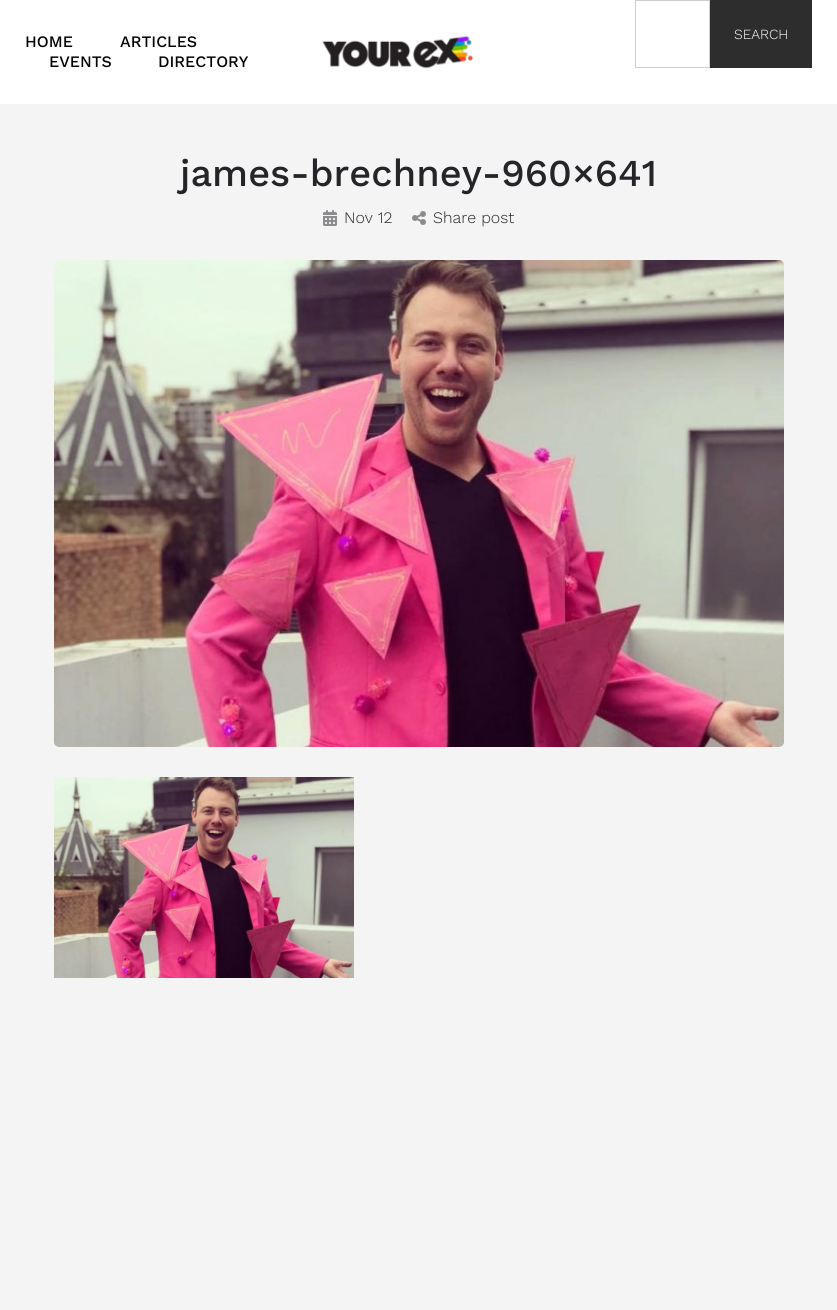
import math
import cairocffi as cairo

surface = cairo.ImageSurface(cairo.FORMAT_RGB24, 837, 1310)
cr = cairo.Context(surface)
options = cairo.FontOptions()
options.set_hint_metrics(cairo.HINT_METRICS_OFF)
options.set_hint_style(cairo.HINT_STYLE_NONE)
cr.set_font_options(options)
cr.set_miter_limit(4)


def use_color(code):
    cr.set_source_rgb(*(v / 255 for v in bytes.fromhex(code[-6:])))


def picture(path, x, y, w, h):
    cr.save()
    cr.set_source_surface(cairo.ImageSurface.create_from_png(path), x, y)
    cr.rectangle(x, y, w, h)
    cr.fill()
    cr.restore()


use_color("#f4f4f4")
cr.paint()
use_color("#ffffff")
cr.rectangle(0, 0, 837, 104)
cr.fill()
cr.select_font_face("Work Sans Medium")
cr.set_font_size(16)
use_color("#000000")
cr.move_to(25, 47)
cr.show_text("HOME")
cr.move_to(120, 47)
cr.show_text("ARTICLES")
cr.move_to(49, 67)
cr.show_text("EVENTS")
cr.move_to(158, 67)
cr.show_text("DIRECTORY")
picture("img1.png", 322, 35, 152, 34)
cr.rectangle(635.5, 0.5, 74, 67)
use_color("#cdcdcd")
cr.set_line_width(1)
cr.stroke()
use_color("#2d2d2d")
cr.rectangle(710, 0, 102, 68)
cr.fill()
cr.select_font_face("Work Sans Light")
cr.set_font_size(14)
use_color("#ffffff")
cr.move_to(734, 39)
cr.show_text("SEARCH")
cr.select_font_face("Work Sans Medium")
cr.set_font_size(38)
use_color("#242429")
cr.move_to(180, 186)
cr.show_text("james-brechney-960×641")
picture("img2.png", 323, 210, 14, 16)
cr.select_font_face("Work Sans Light")
cr.set_font_size(16)
cr.move_to(344, 223)
cr.show_text("Nov 12")
picture("img3.png", 412, 211, 14, 14)
cr.move_to(433, 223)
cr.show_text("Share post")
picture("img4.png", 54, 260, 730, 487)
picture("img5.png", 54, 777, 300, 201)
surface.write_to_png("result.png")
